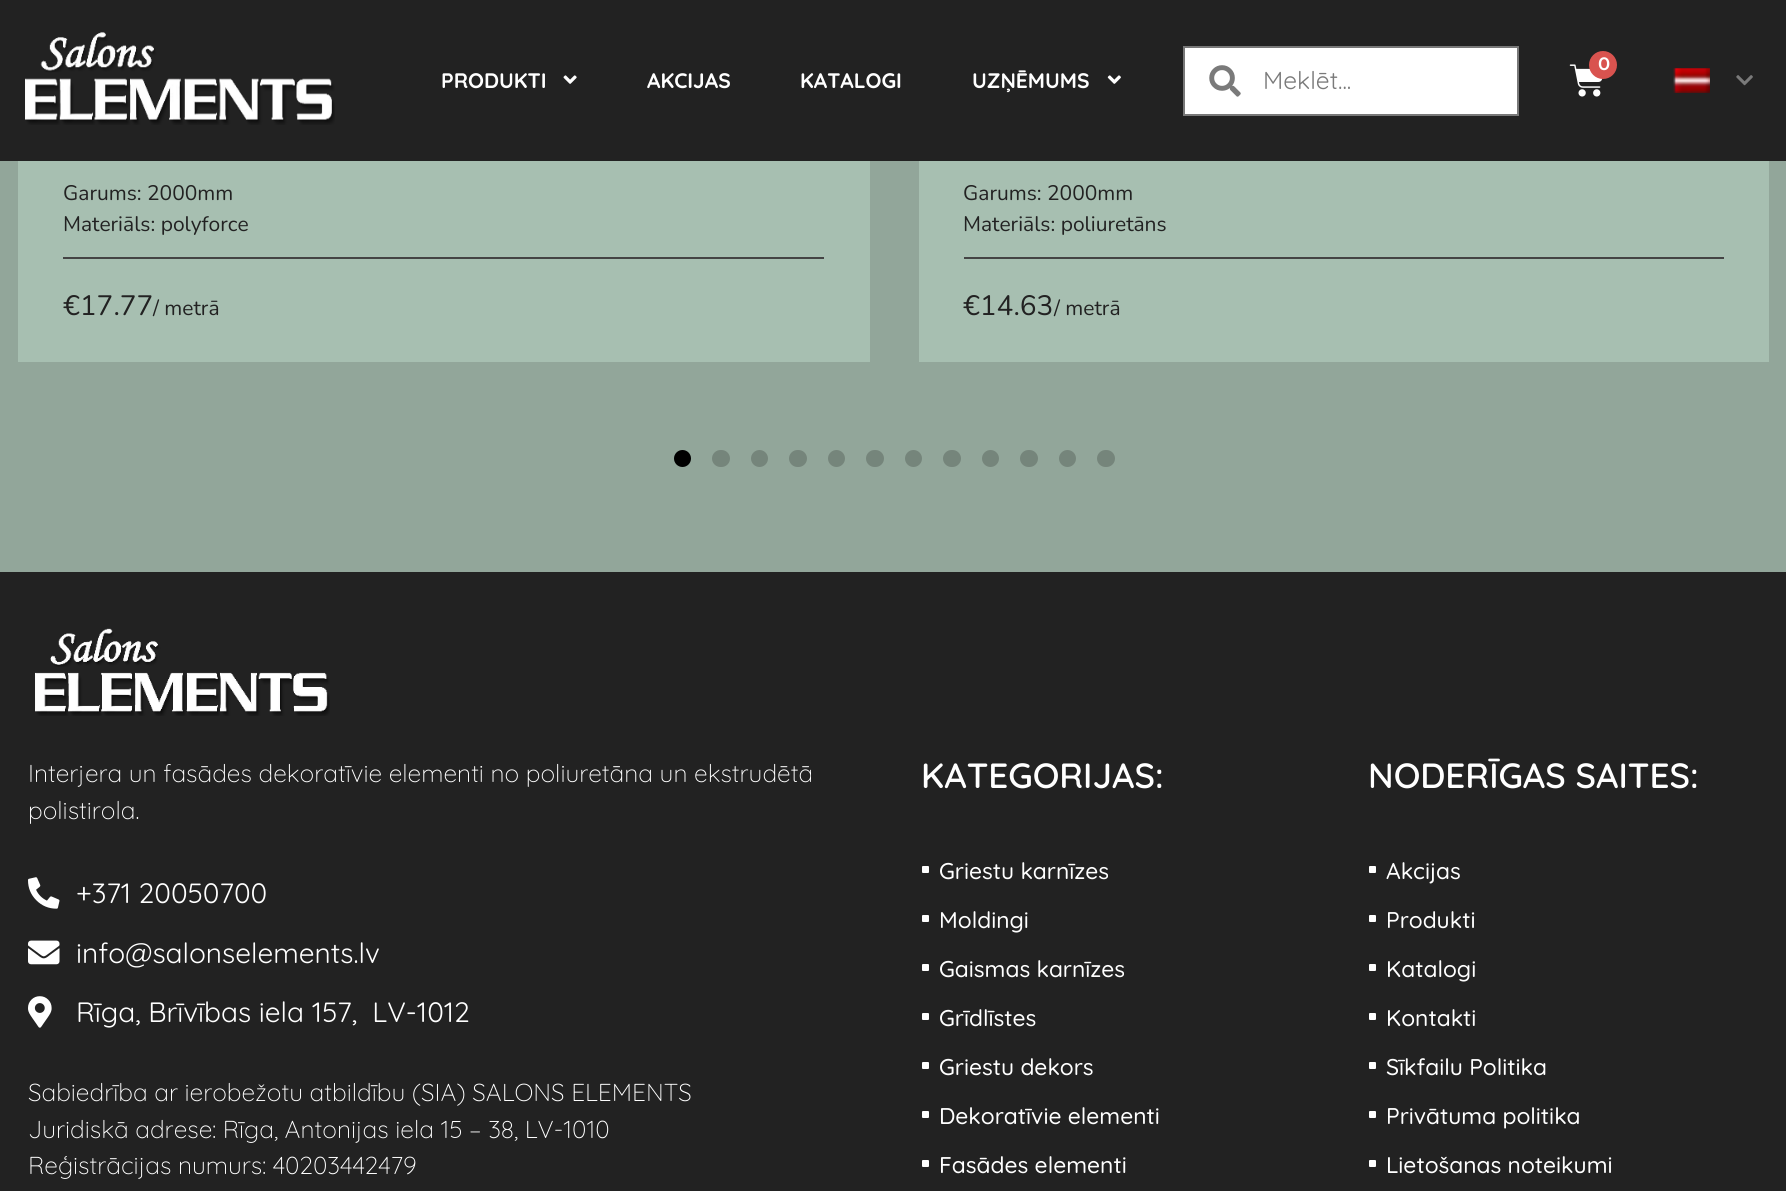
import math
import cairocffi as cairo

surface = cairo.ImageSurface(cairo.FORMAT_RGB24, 1786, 1191)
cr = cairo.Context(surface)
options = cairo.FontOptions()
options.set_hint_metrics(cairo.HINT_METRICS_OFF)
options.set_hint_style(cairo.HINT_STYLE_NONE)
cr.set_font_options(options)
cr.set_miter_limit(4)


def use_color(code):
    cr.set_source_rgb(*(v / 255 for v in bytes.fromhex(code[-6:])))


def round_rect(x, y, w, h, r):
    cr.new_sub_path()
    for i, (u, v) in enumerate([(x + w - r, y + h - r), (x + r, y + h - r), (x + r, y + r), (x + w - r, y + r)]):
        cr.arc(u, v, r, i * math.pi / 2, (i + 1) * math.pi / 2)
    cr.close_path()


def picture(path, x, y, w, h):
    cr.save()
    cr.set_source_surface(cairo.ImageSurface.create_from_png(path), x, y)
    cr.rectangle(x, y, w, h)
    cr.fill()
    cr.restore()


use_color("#92a69a")
cr.paint()
use_color("#222222")
cr.rectangle(0, 0, 1786, 161)
cr.fill()
picture("img1.png", 25, 32, 310, 93)
picture("img2.png", 1569, 64, 34, 33)
use_color("#d9534f")
cr.arc(1603, 65, 14, 0, 2 * math.pi)
cr.fill()
cr.select_font_face("Montserrat SemiBold")
cr.set_font_size(18)
use_color("#ffffff")
cr.move_to(1598, 70)
cr.show_text("0")
cr.select_font_face("Quicksand", cairo.FONT_SLANT_NORMAL, cairo.FONT_WEIGHT_BOLD)
cr.set_font_size(21)
cr.move_to(441, 88)
cr.show_text("PRODUKTI")
picture("img3.png", 563, 75, 14, 9)
cr.move_to(647, 88)
cr.show_text("AKCIJAS")
cr.move_to(800, 88)
cr.show_text("KATALOGI")
cr.move_to(972, 88)
cr.show_text("UZŅĒMUMS")
picture("img4.png", 1107, 75, 14, 9)
cr.rectangle(1184, 47, 334, 68)
cr.fill_preserve()
use_color("#787878")
cr.stroke()
picture("img5.png", 1209, 65, 32, 32)
cr.select_font_face("Quicksand")
cr.set_font_size(24.5)
use_color("#7a7a7a")
cr.move_to(1263, 89)
cr.show_text("Meklēt...")
picture("img6.png", 1673, 68, 37, 25)
picture("img7.png", 1736, 75, 17, 11)
use_color("#a7bfb1")
cr.rectangle(18, 161, 852, 201)
cr.fill()
cr.select_font_face("Nunito")
cr.set_font_size(21)
use_color("#222222")
cr.move_to(63, 200)
cr.show_text("Garums: 2000mm")
cr.move_to(63, 231)
cr.show_text("Materiāls: polyforce")
use_color("#444444")
cr.rectangle(63, 257, 761, 2)
cr.fill()
cr.set_font_size(28)
use_color("#222222")
cr.move_to(63, 315)
cr.show_text("€17.77")
cr.set_font_size(21)
cr.move_to(153, 315)
cr.show_text("/ metrā")
use_color("#a7bfb1")
cr.rectangle(919, 161, 850, 201)
cr.fill()
use_color("#222222")
cr.move_to(963, 200)
cr.show_text("Garums: 2000mm")
cr.move_to(963, 231)
cr.show_text("Materiāls: poliuretāns")
use_color("#444444")
cr.rectangle(964, 257, 760, 2)
cr.fill()
cr.set_font_size(28)
use_color("#222222")
cr.move_to(963, 315)
cr.show_text("€14.63")
cr.set_font_size(21)
cr.move_to(1054, 315)
cr.show_text("/ metrā")
use_color("#000000")
cr.new_path()
cr.arc(682.5, 458.5, 8.5, 0, 2 * math.pi)
cr.fill()
use_color("#75857b")
round_rect(712, 450, 18, 17, 8.5)
cr.fill()
cr.arc(759.5, 458.5, 8.5, 0, 2 * math.pi)
cr.fill()
round_rect(789, 450, 18, 17, 8.5)
cr.fill()
cr.arc(836.5, 458.5, 8.5, 0, 2 * math.pi)
cr.fill()
round_rect(866, 450, 18, 17, 8.5)
cr.fill()
cr.arc(913.5, 458.5, 8.5, 0, 2 * math.pi)
cr.fill()
round_rect(943, 450, 18, 17, 8.5)
cr.fill()
cr.arc(990.5, 458.5, 8.5, 0, 2 * math.pi)
cr.fill()
round_rect(1020, 450, 18, 17, 8.5)
cr.fill()
cr.arc(1067.5, 458.5, 8.5, 0, 2 * math.pi)
cr.fill()
round_rect(1097, 450, 18, 17, 8.5)
cr.fill()
use_color("#222222")
cr.rectangle(0, 572, 1786, 619)
cr.fill()
picture("img8.png", 35, 628, 295, 88)
cr.select_font_face("Quicksand Light")
cr.set_font_size(24.5)
use_color("#ffffff")
cr.move_to(28, 782)
cr.show_text("Interjera un fasādes dekoratīvie elementi no poliuretāna un ekstrudētā")
cr.move_to(28, 819)
cr.show_text("polistirola.")
picture("img9.png", 28, 877, 32, 32)
cr.select_font_face("Quicksand")
cr.set_font_size(28)
cr.move_to(76, 903)
cr.show_text("+371 20050700")
picture("img10.png", 28, 940, 32, 25)
cr.move_to(76, 963)
cr.show_text("info@salonselements.lv")
picture("img11.png", 28, 996, 24, 32)
cr.move_to(76, 1022)
cr.show_text("Rīga, Brīvības iela 157,  LV-1012")
cr.select_font_face("Quicksand Light")
cr.set_font_size(24.5)
cr.move_to(28, 1101)
cr.show_text("Sabiedrība ar ierobežotu atbildību (SIA) SALONS ELEMENTS")
cr.move_to(28, 1138)
cr.show_text("Juridiskā adrese: Rīga, Antonijas iela 15 – 38, LV-1010")
cr.move_to(28, 1174)
cr.show_text("Reģistrācijas numurs: 40203442479")
cr.select_font_face("Quicksand SemiBold")
cr.set_font_size(35)
cr.move_to(921, 788)
cr.show_text("KATEGORIJAS:")
round_rect(922, 866, 7, 7, 1)
cr.fill()
cr.select_font_face("Quicksand Medium")
cr.set_font_size(22.75)
cr.move_to(939, 879)
cr.show_text("Griestu karnīzes")
round_rect(922, 915, 7, 7, 1)
cr.fill()
cr.move_to(939, 928)
cr.show_text("Moldingi")
round_rect(922, 964, 7, 7, 1)
cr.fill()
cr.move_to(939, 977)
cr.show_text("Gaismas karnīzes")
round_rect(922, 1013, 7, 7, 1)
cr.fill()
cr.move_to(939, 1026)
cr.show_text("Grīdlīstes")
round_rect(922, 1062, 7, 7, 1)
cr.fill()
cr.move_to(939, 1075)
cr.show_text("Griestu dekors")
round_rect(922, 1111, 7, 7, 1)
cr.fill()
cr.move_to(939, 1124)
cr.show_text("Dekoratīvie elementi")
round_rect(922, 1160, 7, 7, 1)
cr.fill()
cr.move_to(939, 1173)
cr.show_text("Fasādes elementi")
cr.select_font_face("Quicksand SemiBold")
cr.set_font_size(35)
cr.move_to(1368, 788)
cr.show_text("NODERĪGAS SAITES:")
round_rect(1369, 866, 7, 7, 1)
cr.fill()
cr.select_font_face("Quicksand Medium")
cr.set_font_size(22.75)
cr.move_to(1386, 879)
cr.show_text("Akcijas")
round_rect(1369, 915, 7, 7, 1)
cr.fill()
cr.move_to(1386, 928)
cr.show_text("Produkti")
round_rect(1369, 964, 7, 7, 1)
cr.fill()
cr.move_to(1386, 977)
cr.show_text("Katalogi")
round_rect(1369, 1013, 7, 7, 1)
cr.fill()
cr.move_to(1386, 1026)
cr.show_text("Kontakti")
round_rect(1369, 1062, 7, 7, 1)
cr.fill()
cr.move_to(1386, 1075)
cr.show_text("Sīkfailu Politika")
round_rect(1369, 1111, 7, 7, 1)
cr.fill()
cr.move_to(1386, 1124)
cr.show_text("Privātuma politika")
round_rect(1369, 1160, 7, 7, 1)
cr.fill()
cr.move_to(1386, 1173)
cr.show_text("Lietošanas noteikumi")
surface.write_to_png("result.png")
